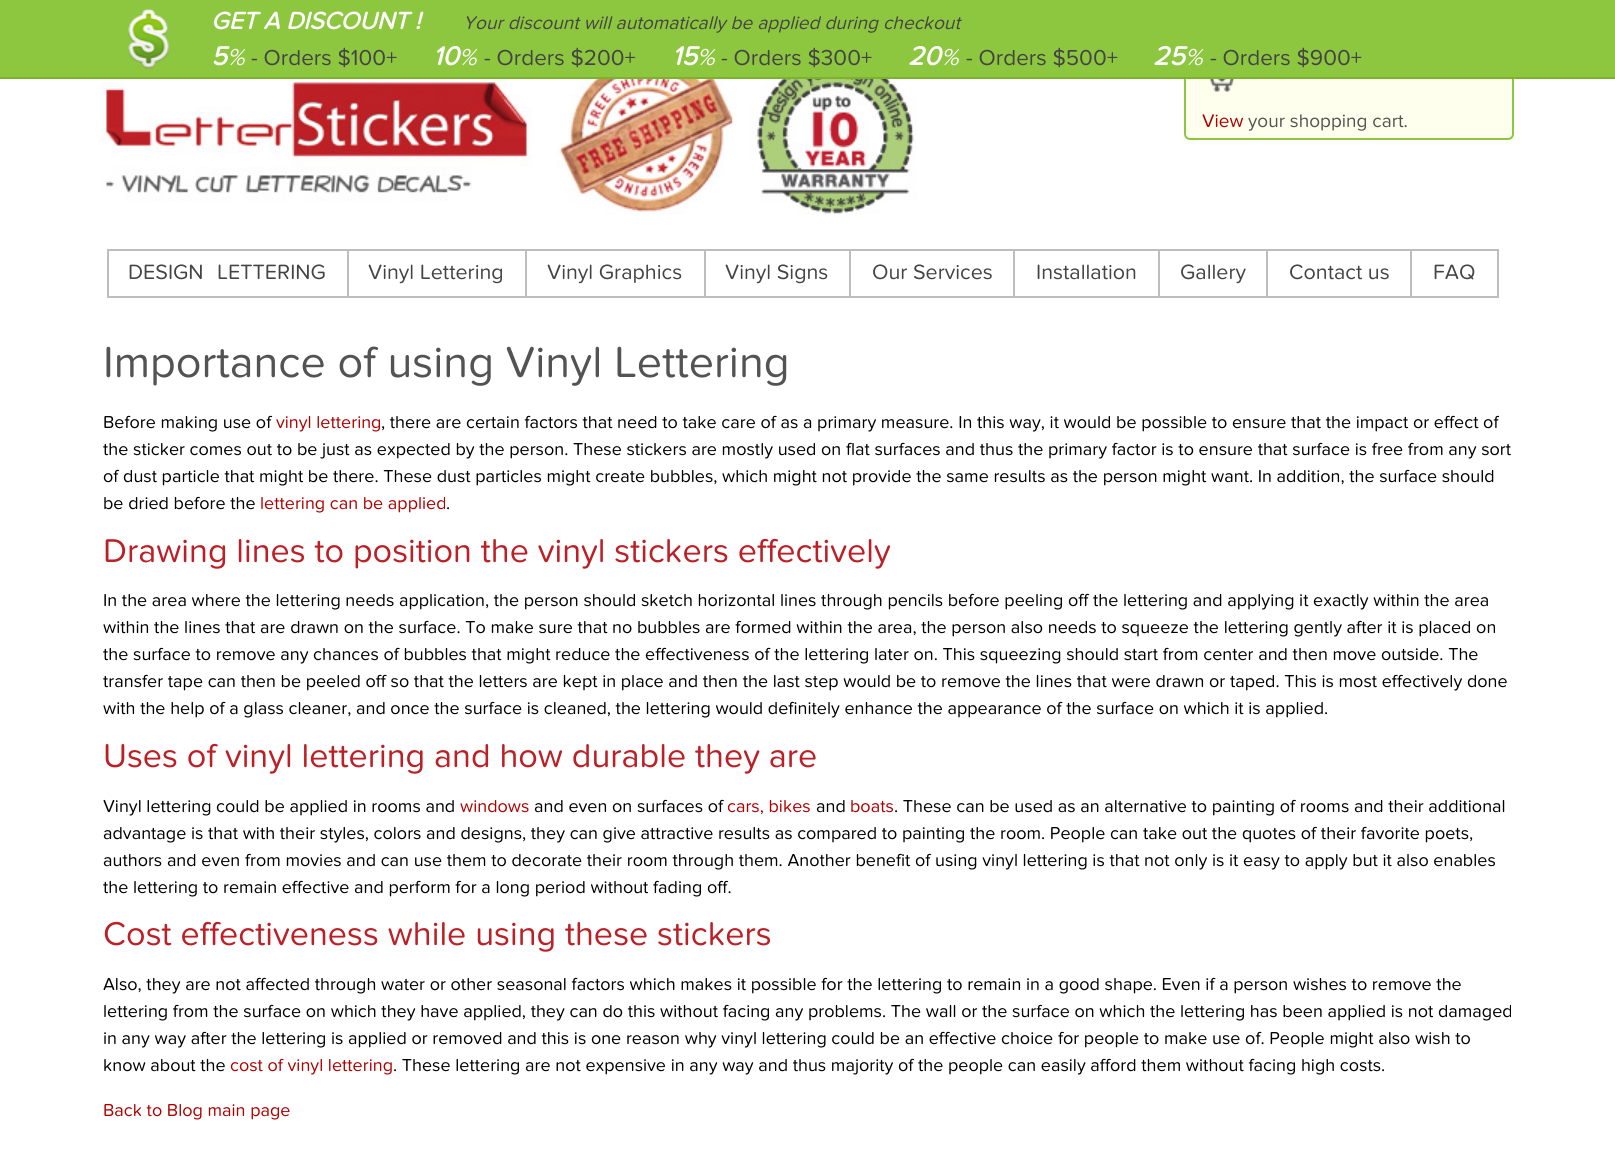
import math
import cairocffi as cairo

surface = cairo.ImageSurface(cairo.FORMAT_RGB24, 1615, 1161)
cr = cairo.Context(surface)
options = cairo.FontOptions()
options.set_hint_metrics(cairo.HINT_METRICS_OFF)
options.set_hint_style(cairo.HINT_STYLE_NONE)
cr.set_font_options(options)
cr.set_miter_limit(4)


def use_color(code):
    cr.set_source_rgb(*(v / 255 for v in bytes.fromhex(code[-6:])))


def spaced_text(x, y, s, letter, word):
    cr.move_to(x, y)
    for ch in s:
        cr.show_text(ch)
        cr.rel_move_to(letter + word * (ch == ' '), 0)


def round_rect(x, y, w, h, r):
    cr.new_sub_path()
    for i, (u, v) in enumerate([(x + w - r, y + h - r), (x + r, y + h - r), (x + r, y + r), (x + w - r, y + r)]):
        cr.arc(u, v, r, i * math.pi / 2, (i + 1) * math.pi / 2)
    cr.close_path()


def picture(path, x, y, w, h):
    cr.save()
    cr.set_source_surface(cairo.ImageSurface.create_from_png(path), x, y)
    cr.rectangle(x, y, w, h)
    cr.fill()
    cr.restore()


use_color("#ffffff")
cr.paint()
use_color("#ffffee")
round_rect(1185, 60, 328, 79, 5)
cr.fill_preserve()
use_color("#8dc63f")
cr.stroke()
cr.rectangle(0, 0, 1615, 77)
cr.fill()
use_color("#7bb42c")
cr.rectangle(0, 77, 1615, 2)
cr.fill()
picture("img1.png", 128, 9, 42, 60)
cr.select_font_face("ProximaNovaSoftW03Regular", cairo.FONT_SLANT_ITALIC, cairo.FONT_WEIGHT_BOLD)
cr.set_font_size(24.75)
use_color("#ffffff")
cr.move_to(211, 29)
cr.show_text("GET A DISCOUNT !")
cr.select_font_face("ProximaNovaSoftW03Regular", cairo.FONT_SLANT_ITALIC)
cr.set_font_size(19.1)
use_color("#444444")
cr.move_to(463, 29)
cr.show_text("Your discount will automatically be applied during checkout")
cr.select_font_face("ProximaNovaSoftW03Regular", cairo.FONT_SLANT_ITALIC, cairo.FONT_WEIGHT_BOLD)
cr.set_font_size(27)
use_color("#ffffff")
cr.move_to(211, 65)
cr.show_text("5")
cr.select_font_face("ProximaNovaSoftW03Regular", cairo.FONT_SLANT_ITALIC)
cr.set_font_size(24)
cr.move_to(227, 65)
cr.show_text("%")
cr.select_font_face("ProximaNovaSoftW03Regular")
cr.set_font_size(22.5)
use_color("#444444")
cr.move_to(251, 65)
cr.show_text("- Orders $100+")
cr.select_font_face("ProximaNovaSoftW03Regular", cairo.FONT_SLANT_ITALIC, cairo.FONT_WEIGHT_BOLD)
cr.set_font_size(27)
use_color("#ffffff")
cr.move_to(433, 65)
cr.show_text("10")
cr.select_font_face("ProximaNovaSoftW03Regular", cairo.FONT_SLANT_ITALIC)
cr.set_font_size(24)
cr.move_to(459, 65)
cr.show_text("%")
cr.select_font_face("ProximaNovaSoftW03Regular")
cr.set_font_size(22.5)
use_color("#444444")
cr.move_to(484, 65)
cr.show_text("- Orders $200+")
cr.select_font_face("ProximaNovaSoftW03Regular", cairo.FONT_SLANT_ITALIC, cairo.FONT_WEIGHT_BOLD)
cr.set_font_size(27)
use_color("#ffffff")
cr.move_to(672, 65)
cr.show_text("15")
cr.select_font_face("ProximaNovaSoftW03Regular", cairo.FONT_SLANT_ITALIC)
cr.set_font_size(24)
cr.move_to(697, 65)
cr.show_text("%")
cr.select_font_face("ProximaNovaSoftW03Regular")
cr.set_font_size(22.5)
use_color("#444444")
cr.move_to(721, 65)
cr.show_text("- Orders $300+")
cr.select_font_face("ProximaNovaSoftW03Regular", cairo.FONT_SLANT_ITALIC, cairo.FONT_WEIGHT_BOLD)
cr.set_font_size(27)
use_color("#ffffff")
cr.move_to(908, 65)
cr.show_text("20")
cr.select_font_face("ProximaNovaSoftW03Regular", cairo.FONT_SLANT_ITALIC)
cr.set_font_size(24)
cr.move_to(941, 65)
cr.show_text("%")
cr.select_font_face("ProximaNovaSoftW03Regular")
cr.set_font_size(22.5)
use_color("#444444")
cr.move_to(966, 65)
cr.show_text("- Orders $500+")
cr.select_font_face("ProximaNovaSoftW03Regular", cairo.FONT_SLANT_ITALIC, cairo.FONT_WEIGHT_BOLD)
cr.set_font_size(27)
use_color("#ffffff")
cr.move_to(1153, 65)
cr.show_text("25")
cr.select_font_face("ProximaNovaSoftW03Regular", cairo.FONT_SLANT_ITALIC)
cr.set_font_size(24)
cr.move_to(1185, 65)
cr.show_text("%")
cr.select_font_face("ProximaNovaSoftW03Regular")
cr.set_font_size(22.5)
use_color("#444444")
cr.move_to(1210, 65)
cr.show_text("- Orders $900+")
picture("img2.png", 100, 79, 817, 136)
picture("img3.png", 1209, 79, 26, 13)
cr.set_font_size(19)
use_color("#af0000")
cr.move_to(1202, 127)
cr.show_text("View")
use_color("#535353")
cr.move_to(1248, 127)
cr.show_text("your shopping cart.")
use_color("#bdbdbd")
cr.rectangle(107, 249, 1392, 2)
cr.fill()
cr.rectangle(107, 296, 1303, 2)
cr.fill()
cr.rectangle(107, 251, 2, 45)
cr.fill()
cr.set_font_size(21.5)
use_color("#444444")
spaced_text(128, 279, "DESIGN LETTERING", 0, 8)
use_color("#bdbdbd")
cr.rectangle(347, 251, 2, 45)
cr.fill()
use_color("#444444")
cr.move_to(368, 279)
cr.show_text("Vinyl Lettering")
use_color("#bdbdbd")
cr.rectangle(525, 251, 2, 45)
cr.fill()
use_color("#444444")
cr.move_to(547, 279)
cr.show_text("Vinyl Graphics")
use_color("#bdbdbd")
cr.rectangle(704, 251, 2, 45)
cr.fill()
use_color("#444444")
cr.move_to(725, 279)
cr.show_text("Vinyl Signs")
use_color("#bdbdbd")
cr.rectangle(849, 251, 2, 45)
cr.fill()
use_color("#444444")
cr.move_to(872, 279)
cr.show_text("Our Services")
use_color("#bdbdbd")
cr.rectangle(1013, 251, 2, 45)
cr.fill()
use_color("#444444")
cr.move_to(1036, 279)
cr.show_text("Installation")
use_color("#bdbdbd")
cr.rectangle(1158, 251, 2, 45)
cr.fill()
use_color("#444444")
cr.move_to(1180, 279)
cr.show_text("Gallery")
use_color("#bdbdbd")
cr.rectangle(1266, 251, 2, 45)
cr.fill()
use_color("#444444")
cr.move_to(1289, 279)
cr.show_text("Contact us")
use_color("#bdbdbd")
cr.rectangle(1497, 249, 2, 48)
cr.fill()
cr.rectangle(1410, 296, 89, 2)
cr.fill()
cr.rectangle(1410, 251, 2, 45)
cr.fill()
use_color("#444444")
cr.move_to(1433, 279)
cr.show_text("FAQ")
cr.set_font_size(45)
use_color("#535353")
cr.move_to(103, 377)
cr.show_text("Importance of using Vinyl Lettering")
cr.set_font_size(18)
use_color("#000000")
cr.move_to(103, 428)
cr.show_text("Before making use of")
use_color("#af0000")
cr.move_to(276, 428)
cr.show_text("vinyl lettering")
use_color("#000000")
cr.move_to(381, 428)
cr.show_text(", there are certain factors that need to take care of as a primary measure. In this way, it would be possible to ensure that the impact or effect of")
cr.move_to(103, 455)
cr.show_text("the sticker comes out to be just as expected by the person. These stickers are mostly used on flat surfaces and thus the primary factor is to ensure that surface is free from any sort")
cr.move_to(103, 482)
cr.show_text("of dust particle that might be there. These dust particles might create bubbles, which might not provide the same results as the person might want. In addition, the surface should")
cr.move_to(103, 509)
cr.show_text("be dried before the")
use_color("#af0000")
cr.move_to(260, 509)
cr.show_text("lettering can be applied")
use_color("#000000")
cr.move_to(446, 509)
cr.show_text(".")
cr.set_font_size(34.2)
use_color("#bc2026")
cr.move_to(103, 562)
cr.show_text("Drawing lines to position the vinyl stickers effectively")
cr.set_font_size(18)
use_color("#000000")
cr.move_to(103, 606)
cr.show_text("In the area where the lettering needs application, the person should sketch horizontal lines through pencils before peeling off the lettering and applying it exactly within the area")
cr.move_to(103, 633)
cr.show_text("within the lines that are drawn on the surface. To make sure that no bubbles are formed within the area, the person also needs to squeeze the lettering gently after it is placed on")
cr.move_to(103, 660)
cr.show_text("the surface to remove any chances of bubbles that might reduce the effectiveness of the lettering later on. This squeezing should start from center and then move outside. The")
cr.move_to(103, 687)
cr.show_text("transfer tape can then be peeled off so that the letters are kept in place and then the last step would be to remove the lines that were drawn or taped. This is most effectively done")
cr.move_to(103, 714)
cr.show_text("with the help of a glass cleaner, and once the surface is cleaned, the lettering would definitely enhance the appearance of the surface on which it is applied.")
cr.set_font_size(34.2)
use_color("#bc2026")
cr.move_to(103, 767)
cr.show_text("Uses of vinyl lettering and how durable they are")
cr.set_font_size(18)
use_color("#000000")
cr.move_to(103, 812)
cr.show_text("Vinyl lettering could be applied in rooms and")
use_color("#af0000")
cr.move_to(460, 812)
cr.show_text("windows")
use_color("#000000")
cr.move_to(534, 812)
cr.show_text("and even on surfaces of")
use_color("#af0000")
cr.move_to(727, 812)
cr.show_text("cars, bikes")
use_color("#000000")
cr.move_to(816, 812)
cr.show_text("and")
use_color("#af0000")
cr.move_to(850, 812)
cr.show_text("boats")
use_color("#000000")
cr.move_to(894, 812)
cr.show_text(". These can be used as an alternative to painting of rooms and their additional")
cr.move_to(103, 839)
cr.show_text("advantage is that with their styles, colors and designs, they can give attractive results as compared to painting the room. People can take out the quotes of their favorite poets,")
cr.move_to(103, 866)
cr.show_text("authors and even from movies and can use them to decorate their room through them. Another benefit of using vinyl lettering is that not only is it easy to apply but it also enables")
cr.move_to(103, 893)
cr.show_text("the lettering to remain effective and perform for a long period without fading off.")
cr.set_font_size(34.2)
use_color("#bc2026")
cr.move_to(103, 945)
cr.show_text("Cost effectiveness while using these stickers")
cr.set_font_size(18)
use_color("#000000")
cr.move_to(103, 990)
cr.show_text("Also, they are not affected through water or other seasonal factors which makes it possible for the lettering to remain in a good shape. Even if a person wishes to remove the")
cr.move_to(103, 1017)
cr.show_text("lettering from the surface on which they have applied, they can do this without facing any problems. The wall or the surface on which the lettering has been applied is not damaged")
cr.move_to(103, 1044)
cr.show_text("in any way after the lettering is applied or removed and this is one reason why vinyl lettering could be an effective choice for people to make use of. People might also wish to")
cr.move_to(103, 1071)
cr.show_text("know about the")
use_color("#af0000")
cr.move_to(230, 1071)
cr.show_text("cost of vinyl lettering")
use_color("#000000")
cr.move_to(393, 1071)
cr.show_text(". These lettering are not expensive in any way and thus majority of the people can easily afford them without facing high costs.")
use_color("#af0000")
cr.move_to(103, 1116)
cr.show_text("Back to Blog main page")
surface.write_to_png("result.png")
